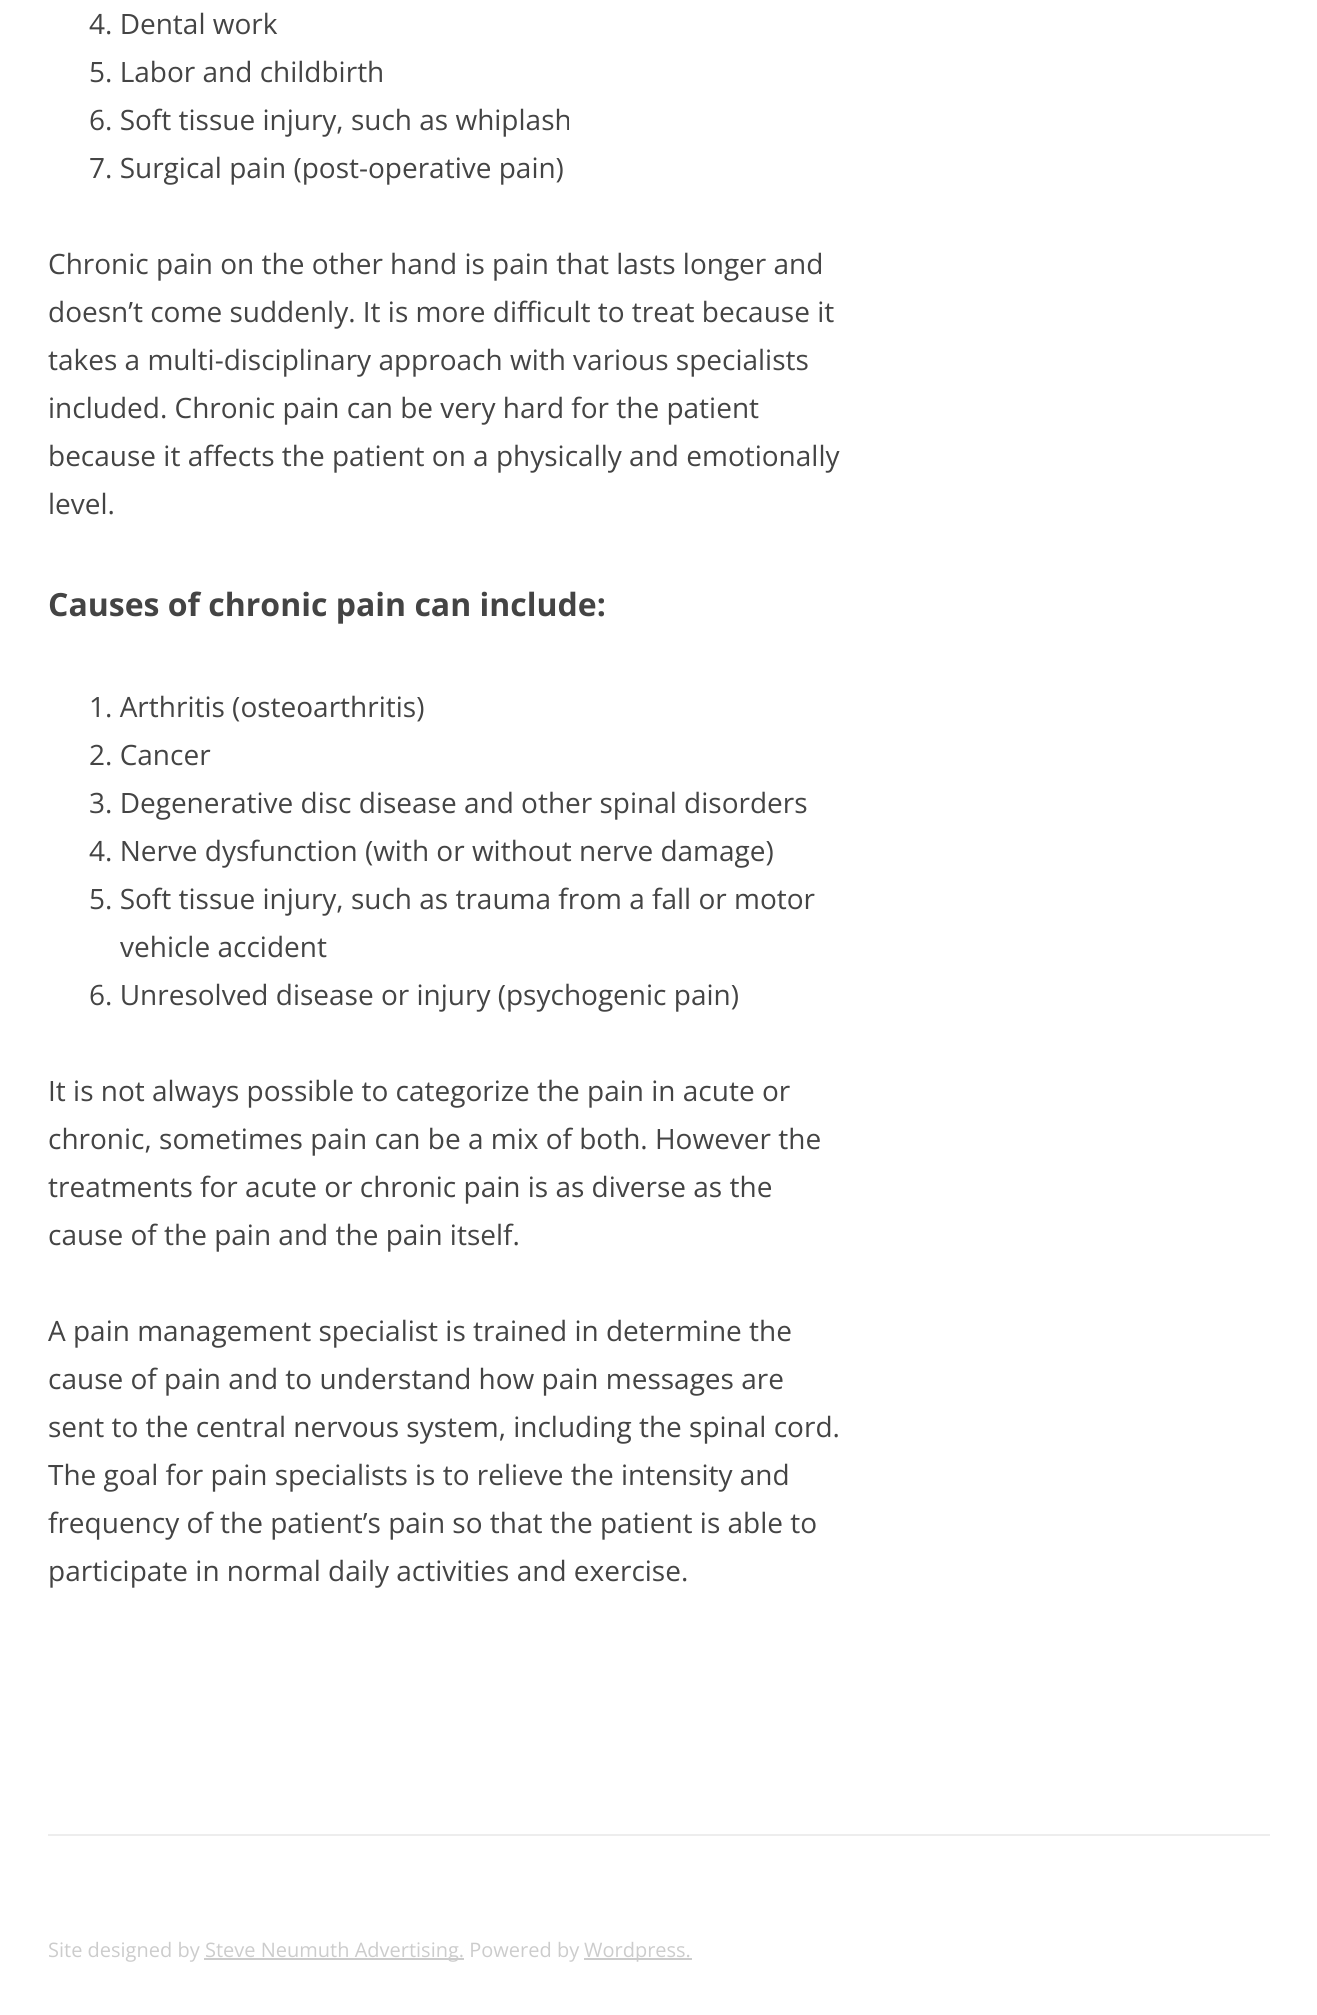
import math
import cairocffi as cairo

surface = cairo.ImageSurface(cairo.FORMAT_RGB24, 1317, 2015)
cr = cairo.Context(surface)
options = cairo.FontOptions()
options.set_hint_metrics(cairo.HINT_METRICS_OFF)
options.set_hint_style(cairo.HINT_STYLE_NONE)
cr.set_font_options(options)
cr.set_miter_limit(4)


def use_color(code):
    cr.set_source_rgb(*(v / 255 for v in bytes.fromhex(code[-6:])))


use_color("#ffffff")
cr.paint()
cr.select_font_face("Open Sans")
cr.set_font_size(28)
use_color("#444444")
cr.move_to(89, 34)
cr.show_text("4. Dental work")
cr.move_to(89, 82)
cr.show_text("5. Labor and childbirth")
cr.move_to(89, 130)
cr.show_text("6. Soft tissue injury, such as whiplash")
cr.move_to(89, 178)
cr.show_text("7. Surgical pain (post-operative pain)")
cr.move_to(48, 274)
cr.show_text("Chronic pain on the other hand is pain that lasts longer and")
cr.move_to(48, 322)
cr.show_text("doesn’t come suddenly. It is more difficult to treat because it")
cr.move_to(48, 370)
cr.show_text("takes a multi-disciplinary approach with various specialists")
cr.move_to(48, 418)
cr.show_text("included. Chronic pain can be very hard for the patient")
cr.move_to(48, 466)
cr.show_text("because it affects the patient on a physically and emotionally")
cr.move_to(48, 514)
cr.show_text("level.")
cr.select_font_face("Open Sans", cairo.FONT_SLANT_NORMAL, cairo.FONT_WEIGHT_BOLD)
cr.set_font_size(32)
cr.move_to(48, 616)
cr.show_text("Causes of chronic pain can include:")
cr.select_font_face("Open Sans")
cr.set_font_size(28)
cr.move_to(89, 717)
cr.show_text("1. Arthritis (osteoarthritis)")
cr.move_to(89, 765)
cr.show_text("2. Cancer")
cr.move_to(89, 813)
cr.show_text("3. Degenerative disc disease and other spinal disorders")
cr.move_to(89, 861)
cr.show_text("4. Nerve dysfunction (with or without nerve damage)")
cr.move_to(89, 909)
cr.show_text("5. Soft tissue injury, such as trauma from a fall or motor")
cr.move_to(120, 957)
cr.show_text("vehicle accident")
cr.move_to(89, 1005)
cr.show_text("6. Unresolved disease or injury (psychogenic pain)")
cr.move_to(48, 1101)
cr.show_text("It is not always possible to categorize the pain in acute or")
cr.move_to(48, 1149)
cr.show_text("chronic, sometimes pain can be a mix of both. However the")
cr.move_to(48, 1197)
cr.show_text("treatments for acute or chronic pain is as diverse as the")
cr.move_to(48, 1245)
cr.show_text("cause of the pain and the pain itself.")
cr.move_to(48, 1341)
cr.show_text("A pain management specialist is trained in determine the")
cr.move_to(48, 1389)
cr.show_text("cause of pain and to understand how pain messages are")
cr.move_to(48, 1437)
cr.show_text("sent to the central nervous system, including the spinal cord.")
cr.move_to(48, 1485)
cr.show_text("The goal for pain specialists is to relieve the intensity and")
cr.move_to(48, 1533)
cr.show_text("frequency of the patient’s pain so that the patient is able to")
cr.move_to(48, 1581)
cr.show_text("participate in normal daily activities and exercise.")
use_color("#ededed")
cr.rectangle(48, 1834, 1222, 2)
cr.fill()
cr.set_font_size(20)
use_color("#cccccc")
cr.move_to(48, 1957)
cr.show_text("Site designed by")
cr.rectangle(204, 1958, 260, 2)
cr.fill()
cr.move_to(205, 1957)
cr.show_text("Steve Neumuth Advertising. Powered by")
cr.rectangle(584, 1958, 108, 2)
cr.fill()
cr.move_to(584, 1957)
cr.show_text("Wordpress.")
surface.write_to_png("result.png")
